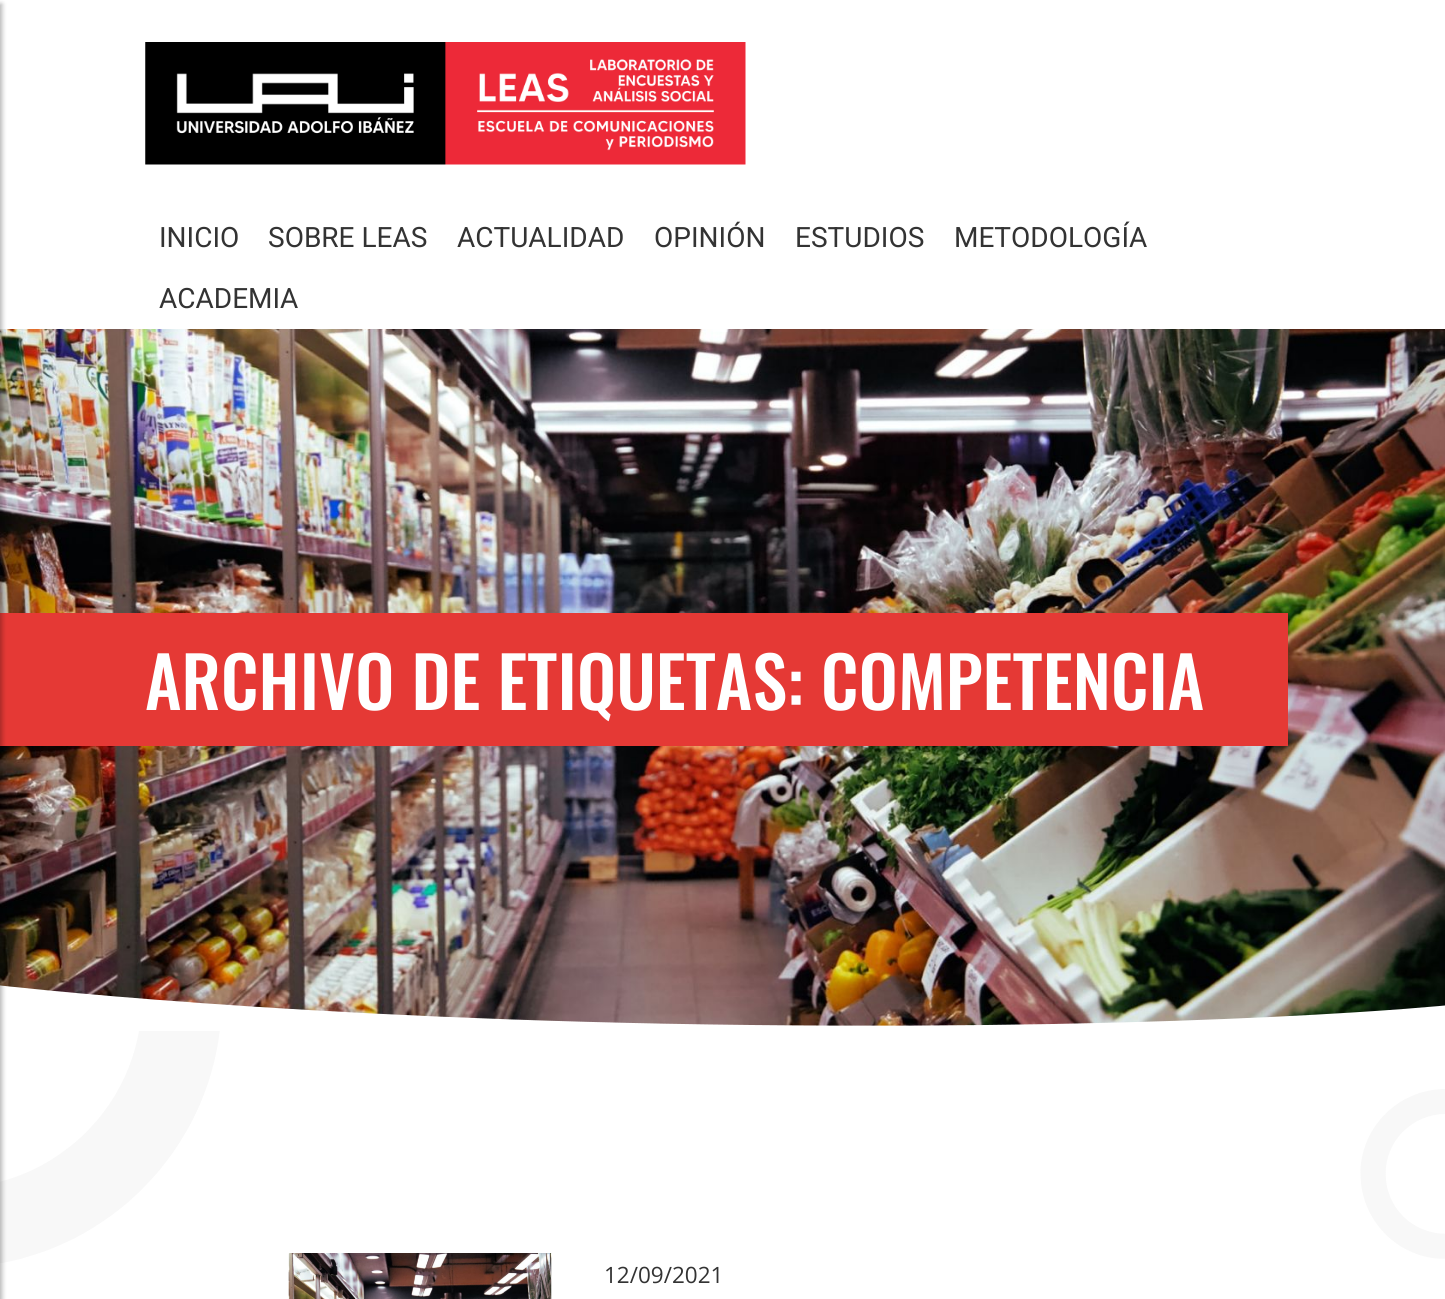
import math
import cairocffi as cairo

surface = cairo.ImageSurface(cairo.FORMAT_RGB24, 1445, 1299)
cr = cairo.Context(surface)
options = cairo.FontOptions()
options.set_hint_metrics(cairo.HINT_METRICS_OFF)
options.set_hint_style(cairo.HINT_STYLE_NONE)
cr.set_font_options(options)
cr.set_miter_limit(4)


def use_color(code):
    cr.set_source_rgb(*(v / 255 for v in bytes.fromhex(code[-6:])))


def round_rect(x, y, w, h, r):
    cr.new_sub_path()
    for i, (u, v) in enumerate([(x + w - r, y + h - r), (x + r, y + h - r), (x + r, y + r), (x + w - r, y + r)]):
        cr.arc(u, v, r, i * math.pi / 2, (i + 1) * math.pi / 2)
    cr.close_path()


def shadow(x, y, w, h, r, blur, alpha):
    cr.push_group_with_content(cairo.CONTENT_ALPHA)
    cr.set_operator(cairo.OPERATOR_SOURCE)
    for i in range(15, -16, -2):
        e = blur * i / 6
        if min(w, h) + 2 * e > 0:
            cr.set_source_rgba(0, 0, 0, alpha * math.erfc((i - 1) / 8.5) / 2)
            round_rect(x - e, y - e, w + 2 * e, h + 2 * e, max(0, min(r + e + blur * .6, min(w, h) / 2 + e)))
            cr.fill()
    cr.mask(cr.pop_group())


def picture(path, x, y, w, h):
    cr.save()
    cr.set_source_surface(cairo.ImageSurface.create_from_png(path), x, y)
    cr.rectangle(x, y, w, h)
    cr.fill()
    cr.restore()


use_color("#ffffff")
cr.paint()
picture("img1.png", 0, 1031, 1445, 232)
picture("img3.png", 0, 329, 1445, 697)
use_color("#e53935")
cr.rectangle(0, 613, 1288, 133)
cr.fill()
use_color("#ffffff")
cr.new_path()
cr.move_to(-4, 985)
cr.curve_to(-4, 985, 293, 1020, 751, 1025)
cr.curve_to(1210, 1030, 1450, 1005, 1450, 1005)
cr.line_to(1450, 1031)
cr.line_to(-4, 1031)
cr.close_path()
cr.fill()
use_color("#000000")
shadow(-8, 4, 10, 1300, 0, 2.5, 0.3)
picture("img2.png", 145, 42, 601, 123)
cr.select_font_face("Roboto")
cr.set_font_size(28)
use_color("#333333")
cr.move_to(159, 247)
cr.show_text("INICIO")
cr.move_to(268, 247)
cr.show_text("SOBRE LEAS")
cr.move_to(457, 247)
cr.show_text("ACTUALIDAD")
cr.move_to(654, 247)
cr.show_text("OPINIÓN")
cr.move_to(795, 247)
cr.show_text("ESTUDIOS")
cr.move_to(954, 247)
cr.show_text("METODOLOGÍA")
cr.move_to(159, 308)
cr.show_text("ACADEMIA")
cr.select_font_face("Oswald Medium")
cr.set_font_size(70)
use_color("#ffffff")
cr.move_to(145, 710)
cr.show_text("ARCHIVO DE ETIQUETAS: COMPETENCIA")
picture("img4.png", 288, 1253, 264, 46)
cr.select_font_face("Open Sans")
cr.set_font_size(22.5)
use_color("#333333")
cr.move_to(604, 1283)
cr.show_text("12/09/2021")
surface.write_to_png("result.png")
